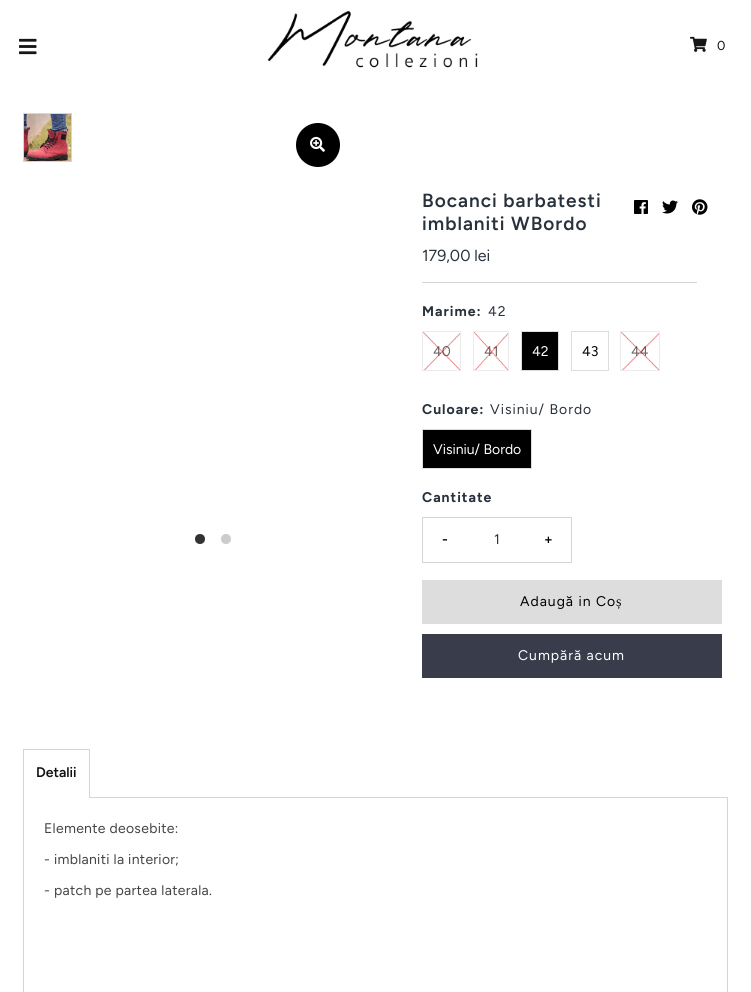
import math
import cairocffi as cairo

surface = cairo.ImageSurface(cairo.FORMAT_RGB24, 751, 992)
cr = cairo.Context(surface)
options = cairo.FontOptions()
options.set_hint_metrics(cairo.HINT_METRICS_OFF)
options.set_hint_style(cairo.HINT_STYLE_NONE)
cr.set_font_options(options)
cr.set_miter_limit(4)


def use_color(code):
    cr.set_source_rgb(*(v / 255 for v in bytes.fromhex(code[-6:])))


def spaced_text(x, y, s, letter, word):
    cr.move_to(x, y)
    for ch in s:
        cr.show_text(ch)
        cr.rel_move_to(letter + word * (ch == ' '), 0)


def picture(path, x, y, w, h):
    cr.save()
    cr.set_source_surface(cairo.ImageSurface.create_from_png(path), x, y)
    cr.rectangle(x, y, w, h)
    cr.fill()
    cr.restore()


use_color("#ffffff")
cr.paint()
picture("img1.png", 19, 38, 18, 17)
picture("img2.png", 267, 11, 211, 57)
picture("img3.png", 690, 36, 17, 16)
cr.select_font_face("Figtree")
cr.set_font_size(13)
use_color("#111111")
spaced_text(717, 50, "0", 1, 0)
picture("img4.png", 24, 114, 47, 47)
cr.rectangle(23.5, 113.5, 48, 48)
use_color("#d5d5d5")
cr.set_line_width(1)
cr.stroke()
use_color("#000000")
cr.arc(318, 145, 22, 0, 2 * math.pi)
cr.fill()
picture("img5.png", 310, 136, 15, 16)
use_color("#333333")
cr.arc(200, 539, 5, 0, 2 * math.pi)
cr.fill()
use_color("#cccccc")
cr.arc(226, 539, 5, 0, 2 * math.pi)
cr.fill()
cr.select_font_face("Figtree SemiBold")
cr.set_font_size(19)
use_color("#28323c")
spaced_text(422, 207, "Bocanci barbatesti", 1, 0)
spaced_text(422, 230, "imblaniti WBordo", 1, 0)
picture("img6.png", 634, 200, 14, 14)
picture("img7.png", 662, 200, 16, 14)
picture("img8.png", 692, 199, 16, 16)
use_color("#d5d5d5")
cr.rectangle(422, 282, 275, 1)
cr.fill()
cr.select_font_face("Figtree")
cr.set_font_size(16)
use_color("#28323c")
cr.move_to(422, 261)
cr.show_text("179,00 lei")
cr.select_font_face("Figtree", cairo.FONT_SLANT_NORMAL, cairo.FONT_WEIGHT_BOLD)
cr.set_font_size(14)
spaced_text(422, 316, "Marime:", 1, 0)
cr.select_font_face("Figtree")
spaced_text(488, 316, "42", 1, 0)
cr.rectangle(422.5, 331.5, 38, 39)
use_color("#ebebeb")
cr.stroke()
use_color("#666666")
cr.move_to(433, 356)
cr.show_text("40")
picture("img9.png", 423, 332, 37, 38)
cr.rectangle(473.5, 331.5, 35, 39)
use_color("#ebebeb")
cr.stroke()
use_color("#666666")
cr.move_to(484, 356)
cr.show_text("41")
picture("img10.png", 474, 332, 34, 38)
use_color("#000000")
cr.rectangle(521.5, 331.5, 37, 39)
cr.fill_preserve()
use_color("#dddddd")
cr.stroke()
use_color("#ffffff")
cr.move_to(532, 356)
cr.show_text("42")
cr.rectangle(571.5, 331.5, 37, 39)
use_color("#dddddd")
cr.stroke()
use_color("#000000")
cr.move_to(582, 356)
cr.show_text("43")
cr.rectangle(620.5, 331.5, 39, 39)
use_color("#ebebeb")
cr.stroke()
use_color("#666666")
cr.move_to(631, 356)
cr.show_text("44")
picture("img11.png", 621, 332, 38, 38)
cr.select_font_face("Figtree", cairo.FONT_SLANT_NORMAL, cairo.FONT_WEIGHT_BOLD)
use_color("#28323c")
spaced_text(422, 414, "Culoare:", 1, 0)
cr.select_font_face("Figtree")
spaced_text(490, 414, "Visiniu/ Bordo", 1, 0)
use_color("#000000")
cr.rectangle(422.5, 429.5, 109, 39)
cr.fill_preserve()
use_color("#dddddd")
cr.stroke()
use_color("#ffffff")
cr.move_to(433, 454)
cr.show_text("Visiniu/ Bordo")
cr.select_font_face("Figtree", cairo.FONT_SLANT_NORMAL, cairo.FONT_WEIGHT_BOLD)
use_color("#28323c")
spaced_text(422, 502, "Cantitate", 1, 0)
cr.rectangle(422.5, 517.5, 149, 45)
use_color("#d5d5d5")
cr.stroke()
cr.select_font_face("Figtree SemiBold")
use_color("#000000")
cr.move_to(442, 544)
cr.show_text("-")
cr.select_font_face("Figtree")
use_color("#28323c")
cr.move_to(494, 544)
cr.show_text("1")
cr.select_font_face("Figtree SemiBold")
use_color("#000000")
cr.move_to(544, 544)
cr.show_text("+")
use_color("#dddddd")
cr.rectangle(422, 580, 300, 44)
cr.fill()
cr.select_font_face("Figtree")
use_color("#000000")
spaced_text(520, 606, "Adaugă in Co", 1, 0)
cr.select_font_face("Liberation Serif")
spaced_text(616, 606, "ș", 1, 0)
use_color("#393c4a")
cr.rectangle(422, 634, 300, 44)
cr.fill()
cr.select_font_face("Figtree")
use_color("#ffffff")
spaced_text(518, 660, "Cumpără acum", 1, 0)
use_color("#d5d5d5")
cr.rectangle(23, 749, 67, 1)
cr.fill()
cr.rectangle(89, 749, 1, 48)
cr.fill()
cr.rectangle(23, 749, 1, 48)
cr.fill()
cr.select_font_face("Figtree SemiBold")
use_color("#111111")
cr.move_to(36, 777)
cr.show_text("Detalii")
cr.rectangle(23.5, 797.5, 704, 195)
use_color("#d5d5d5")
cr.stroke()
use_color("#ffffff")
cr.rectangle(24, 797, 65, 1)
cr.fill()
cr.select_font_face("Figtree")
use_color("#444444")
spaced_text(44, 833, "Elemente deosebite:", 0.3, 0)
spaced_text(44, 864, "- imblaniti la interior;", 0.3, 0)
spaced_text(44, 895, "- patch pe partea laterala.", 0.3, 0)
surface.write_to_png("result.png")
